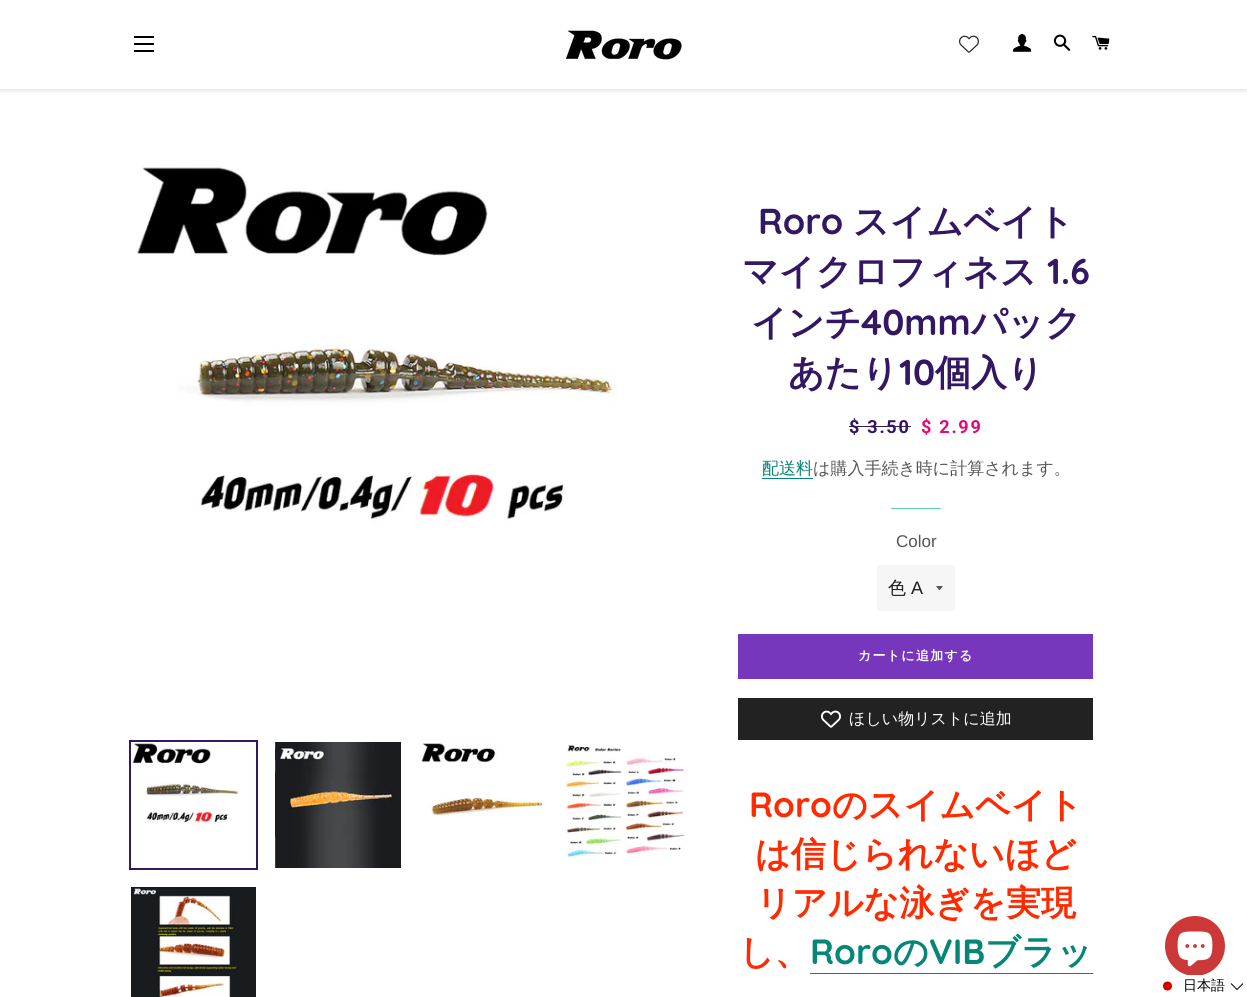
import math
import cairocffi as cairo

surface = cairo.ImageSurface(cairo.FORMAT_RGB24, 1247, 997)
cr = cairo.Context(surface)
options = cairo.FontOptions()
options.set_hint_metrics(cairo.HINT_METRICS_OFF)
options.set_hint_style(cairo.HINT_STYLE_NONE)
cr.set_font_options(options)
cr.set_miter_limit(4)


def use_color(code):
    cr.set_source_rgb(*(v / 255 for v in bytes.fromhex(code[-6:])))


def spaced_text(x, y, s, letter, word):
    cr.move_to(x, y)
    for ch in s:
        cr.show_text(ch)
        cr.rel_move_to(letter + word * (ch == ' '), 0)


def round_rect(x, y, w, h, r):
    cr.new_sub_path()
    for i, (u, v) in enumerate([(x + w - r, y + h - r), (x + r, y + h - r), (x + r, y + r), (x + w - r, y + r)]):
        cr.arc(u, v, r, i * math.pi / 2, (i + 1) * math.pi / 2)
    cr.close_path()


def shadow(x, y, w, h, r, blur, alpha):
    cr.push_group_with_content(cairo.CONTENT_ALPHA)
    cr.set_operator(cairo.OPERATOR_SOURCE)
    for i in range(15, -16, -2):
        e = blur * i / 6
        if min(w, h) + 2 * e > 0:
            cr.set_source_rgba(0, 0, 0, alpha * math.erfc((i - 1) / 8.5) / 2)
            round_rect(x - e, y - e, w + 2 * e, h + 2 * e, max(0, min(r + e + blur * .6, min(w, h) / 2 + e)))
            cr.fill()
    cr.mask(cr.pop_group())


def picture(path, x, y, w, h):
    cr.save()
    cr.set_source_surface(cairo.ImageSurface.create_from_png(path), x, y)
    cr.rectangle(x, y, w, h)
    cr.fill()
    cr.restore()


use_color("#ffffff")
cr.paint()
cr.save()
cr.rectangle(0, 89, 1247, 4)
cr.clip()
use_color("#000000")
shadow(0, 2, 1247, 89, 0, 2, 0.1)
cr.restore()
use_color("#000000")
cr.rectangle(134, 36, 20, 2)
cr.fill()
cr.rectangle(134, 43, 20, 2)
cr.fill()
cr.rectangle(134, 50, 20, 2)
cr.fill()
picture("img1.png", 565, 30, 117, 30)
picture("img2.png", 959, 35, 20, 18)
picture("img3.png", 1013, 33, 19, 19)
picture("img4.png", 1053, 34, 18, 17)
picture("img5.png", 1092, 35, 18, 15)
picture("img6.png", 129, 160, 564, 565)
cr.rectangle(130, 741, 127, 128)
use_color("#321863")
cr.stroke()
picture("img7.png", 131, 742, 108, 81)
picture("img8.png", 275, 742, 126, 126)
picture("img9.png", 420, 742, 126, 74)
picture("img10.png", 565, 745, 121, 112)
picture("img11.png", 131, 887, 125, 110)
cr.select_font_face("Quicksand", cairo.FONT_SLANT_NORMAL, cairo.FONT_WEIGHT_BOLD)
cr.set_font_size(36)
cr.move_to(758, 234)
cr.show_text("Roro")
cr.select_font_face("WenQuanYi Zen Hei", cairo.FONT_SLANT_NORMAL, cairo.FONT_WEIGHT_BOLD)
cr.move_to(853, 234)
cr.show_text("スイムベイト")
cr.move_to(742, 284)
cr.show_text("マイクロフィネス")
cr.select_font_face("Quicksand", cairo.FONT_SLANT_NORMAL, cairo.FONT_WEIGHT_BOLD)
cr.move_to(1047, 284)
cr.show_text("1.6")
cr.select_font_face("WenQuanYi Zen Hei", cairo.FONT_SLANT_NORMAL, cairo.FONT_WEIGHT_BOLD)
cr.move_to(751, 335)
cr.show_text("インチ")
cr.select_font_face("Quicksand", cairo.FONT_SLANT_NORMAL, cairo.FONT_WEIGHT_BOLD)
cr.move_to(861, 335)
cr.show_text("40mm")
cr.select_font_face("WenQuanYi Zen Hei", cairo.FONT_SLANT_NORMAL, cairo.FONT_WEIGHT_BOLD)
cr.move_to(971, 335)
cr.show_text("パック")
cr.move_to(788, 385)
cr.show_text("あたり")
cr.select_font_face("Quicksand", cairo.FONT_SLANT_NORMAL, cairo.FONT_WEIGHT_BOLD)
cr.move_to(899, 385)
cr.show_text("10")
cr.select_font_face("WenQuanYi Zen Hei", cairo.FONT_SLANT_NORMAL, cairo.FONT_WEIGHT_BOLD)
cr.move_to(935, 385)
cr.show_text("個入り")
cr.select_font_face("Roboto", cairo.FONT_SLANT_NORMAL, cairo.FONT_WEIGHT_BOLD)
cr.set_font_size(18)
spaced_text(849, 433, "$ 3.50", 1.75, 0)
cr.rectangle(849, 426, 62, 1)
cr.fill()
use_color("#e80970")
spaced_text(921, 433, "$ 2.99", 1.75, 0)
cr.select_font_face("WenQuanYi Zen Hei Medium")
cr.set_font_size(17)
use_color("#058677")
cr.move_to(762, 474)
cr.show_text("配送料")
cr.rectangle(762, 478, 51, 1)
cr.fill()
use_color("#565656")
cr.move_to(813, 474)
cr.show_text("は購入手続き時に計算されます。")
use_color("#5dd2b4")
cr.rectangle(891, 508, 50, 1)
cr.fill()
cr.select_font_face("Liberation Sans")
use_color("#565656")
cr.move_to(896, 547)
cr.show_text("Color")
use_color("#f6f6f6")
cr.rectangle(877, 565, 78, 46)
cr.fill()
use_color("#565656")
cr.new_path()
cr.move_to(936, 586)
cr.curve_to(940.5, 591.5, 938.5, 591.5, 943, 586)
cr.close_path()
cr.fill()
cr.select_font_face("WenQuanYi Zen Hei Medium")
cr.set_font_size(18)
use_color("#1c1d1d")
cr.move_to(888, 594)
cr.show_text("色")
cr.select_font_face("Liberation Sans")
cr.move_to(911, 594)
cr.show_text("A")
use_color("#7737bd")
cr.rectangle(738, 634, 355, 45)
cr.fill()
cr.select_font_face("WenQuanYi Zen Hei", cairo.FONT_SLANT_NORMAL, cairo.FONT_WEIGHT_BOLD)
cr.set_font_size(13)
use_color("#ffffff")
spaced_text(858, 660, "カートに追加する", 1.25, 0)
use_color("#222222")
cr.rectangle(738, 698, 355, 42)
cr.fill()
picture("img12.png", 821, 710, 20, 18)
cr.select_font_face("WenQuanYi Zen Hei Medium")
cr.set_font_size(16)
use_color("#ffffff")
cr.move_to(849, 724)
cr.show_text("ほしい物リストに追加")
cr.select_font_face("Quicksand", cairo.FONT_SLANT_NORMAL, cairo.FONT_WEIGHT_BOLD)
cr.set_font_size(35)
use_color("#ff2a00")
cr.move_to(749, 817)
cr.show_text("Roro")
cr.select_font_face("WenQuanYi Zen Hei", cairo.FONT_SLANT_NORMAL, cairo.FONT_WEIGHT_BOLD)
cr.move_to(832, 817)
cr.show_text("のスイムベイト")
cr.move_to(755, 866)
cr.show_text("は信じられないほど")
cr.move_to(756, 915)
cr.show_text("リアルな泳ぎを実現")
cr.move_to(739, 964)
cr.show_text("し、")
cr.select_font_face("Quicksand", cairo.FONT_SLANT_NORMAL, cairo.FONT_WEIGHT_BOLD)
use_color("#058677")
cr.move_to(810, 964)
cr.show_text("Roro")
cr.select_font_face("WenQuanYi Zen Hei", cairo.FONT_SLANT_NORMAL, cairo.FONT_WEIGHT_BOLD)
cr.move_to(893, 964)
cr.show_text("の")
cr.rectangle(810, 973, 283, 1)
cr.fill()
cr.select_font_face("Quicksand", cairo.FONT_SLANT_NORMAL, cairo.FONT_WEIGHT_BOLD)
cr.move_to(929, 964)
cr.show_text("VIB")
cr.select_font_face("WenQuanYi Zen Hei", cairo.FONT_SLANT_NORMAL, cairo.FONT_WEIGHT_BOLD)
cr.move_to(985, 964)
cr.show_text("ブラッ")
use_color("#cc3838")
cr.new_path()
cr.arc(1195, 946, 30, 0, 2 * math.pi)
cr.fill()
picture("img13.png", 1177, 931, 36, 36)
use_color("#ffffff")
cr.rectangle(1187, 975, 16, 1)
cr.fill()
use_color("#d30000")
cr.arc(1167.5, 986, 4.5, 0, 2 * math.pi)
cr.fill()
cr.select_font_face("WenQuanYi Zen Hei Medium")
cr.set_font_size(14)
use_color("#000000")
cr.move_to(1183, 990)
cr.show_text("日本語")
cr.new_path()
cr.move_to(1231, 983.5)
cr.line_to(1237, 989.5)
cr.line_to(1243, 983.5)
cr.set_line_width(1)
cr.stroke()
surface.write_to_png("result.png")
